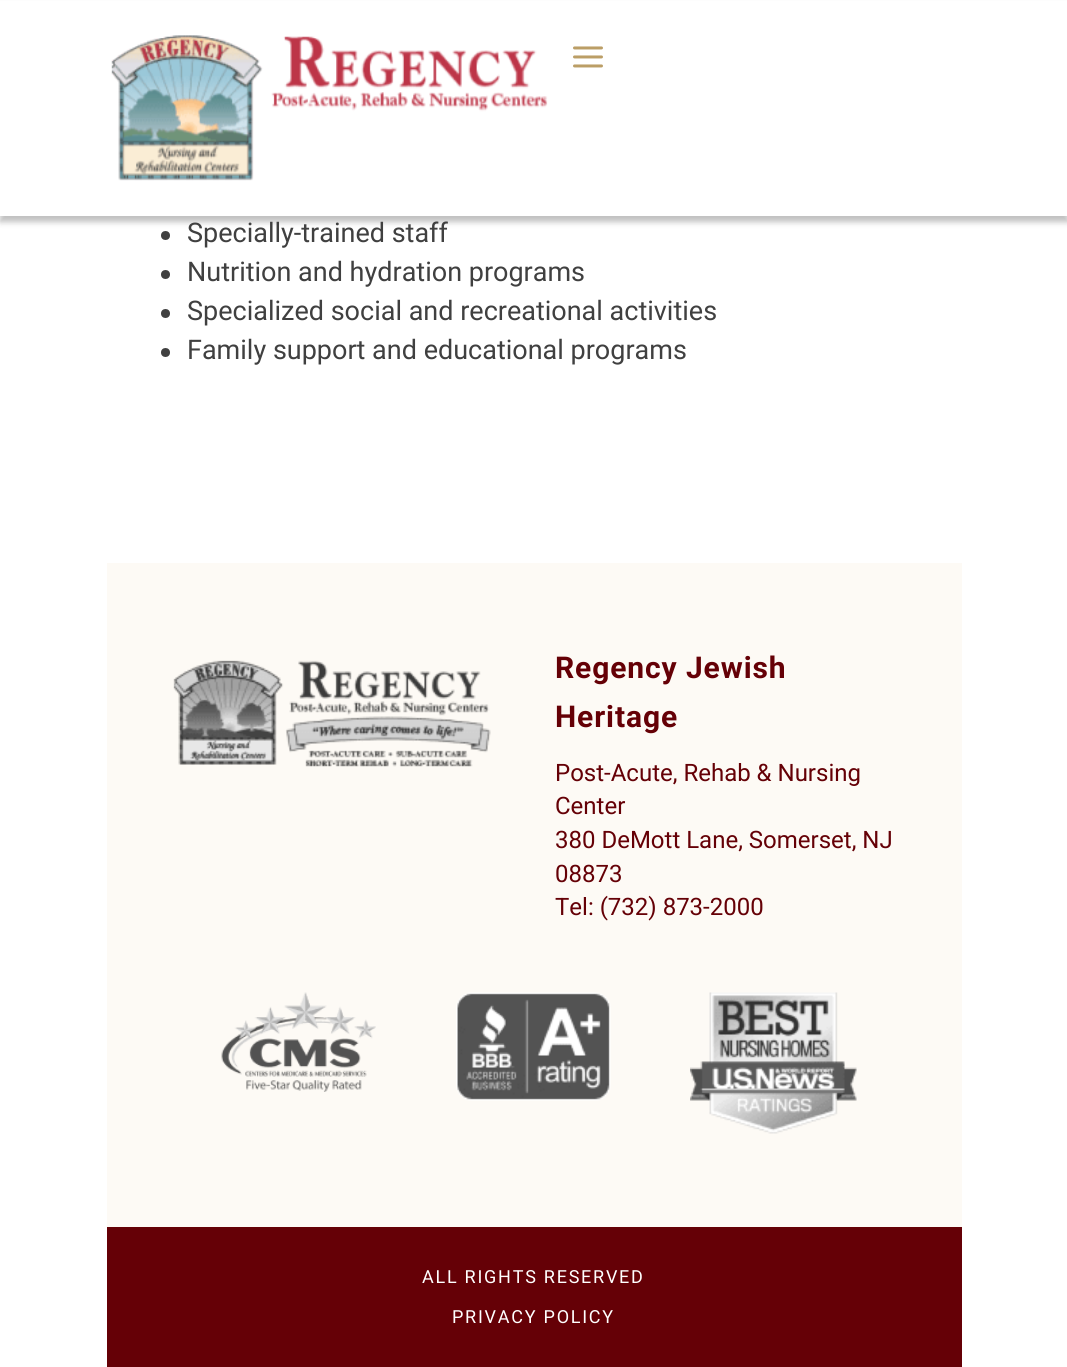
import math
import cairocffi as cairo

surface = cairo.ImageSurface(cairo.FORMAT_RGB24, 1067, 1367)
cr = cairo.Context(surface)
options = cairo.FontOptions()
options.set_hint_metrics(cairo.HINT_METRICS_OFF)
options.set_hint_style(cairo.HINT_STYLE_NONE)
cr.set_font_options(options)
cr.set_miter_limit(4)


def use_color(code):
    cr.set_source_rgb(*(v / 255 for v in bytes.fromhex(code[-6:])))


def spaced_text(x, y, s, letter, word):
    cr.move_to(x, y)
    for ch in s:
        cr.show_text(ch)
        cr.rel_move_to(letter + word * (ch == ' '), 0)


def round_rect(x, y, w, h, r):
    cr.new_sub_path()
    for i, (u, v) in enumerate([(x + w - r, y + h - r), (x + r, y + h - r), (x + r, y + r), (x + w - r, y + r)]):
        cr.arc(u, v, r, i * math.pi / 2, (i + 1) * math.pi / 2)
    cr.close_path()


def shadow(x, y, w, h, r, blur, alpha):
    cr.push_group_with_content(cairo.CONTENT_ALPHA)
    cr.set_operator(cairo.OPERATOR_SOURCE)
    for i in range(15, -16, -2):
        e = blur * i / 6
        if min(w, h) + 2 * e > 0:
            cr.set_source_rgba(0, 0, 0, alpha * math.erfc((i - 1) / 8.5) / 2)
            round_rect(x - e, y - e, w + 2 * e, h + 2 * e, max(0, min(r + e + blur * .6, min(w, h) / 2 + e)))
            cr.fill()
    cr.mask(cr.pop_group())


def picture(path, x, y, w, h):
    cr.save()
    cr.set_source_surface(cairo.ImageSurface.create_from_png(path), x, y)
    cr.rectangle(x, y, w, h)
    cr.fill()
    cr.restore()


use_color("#ffffff")
cr.paint()
use_color("#404040")
cr.arc(165.5, 235.5, 4.5, 0, 2 * math.pi)
cr.fill()
use_color("#000000")
shadow(0, 6, 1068, 216, 0, 3, 0.25)
use_color("#ffffff")
cr.rectangle(0, 1, 1067, 215)
cr.fill()
picture("img1.png", 111, 35, 437, 146)
picture("img2.png", 573, 46, 30, 22)
cr.select_font_face("Roboto")
cr.set_font_size(27)
use_color("#404040")
cr.move_to(187, 242)
cr.show_text("Specially-trained staff")
cr.new_path()
cr.arc(165.5, 274.5, 4.5, 0, 2 * math.pi)
cr.fill()
cr.move_to(187, 281)
cr.show_text("Nutrition and hydration programs")
cr.new_path()
cr.arc(165.5, 313.5, 4.5, 0, 2 * math.pi)
cr.fill()
cr.move_to(187, 320)
cr.show_text("Specialized social and recreational activities")
cr.new_path()
cr.arc(165.5, 352.5, 4.5, 0, 2 * math.pi)
cr.fill()
cr.move_to(187, 359)
cr.show_text("Family support and educational programs")
use_color("#fdfaf5")
cr.rectangle(107, 563, 855, 664)
cr.fill()
picture("img3.png", 173, 660, 318, 107)
cr.select_font_face("Roboto", cairo.FONT_SLANT_NORMAL, cairo.FONT_WEIGHT_BOLD)
cr.set_font_size(30)
use_color("#650006")
spaced_text(555, 678, "Regency Jewish", 0.9, 0)
spaced_text(555, 727, "Heritage", 0.9, 0)
cr.select_font_face("Roboto")
cr.set_font_size(24)
cr.move_to(555, 781)
cr.show_text("Post-Acute, Rehab & Nursing")
cr.move_to(555, 814)
cr.show_text("Center")
cr.move_to(555, 848)
cr.show_text("380 DeMott Lane, Somerset, NJ")
cr.move_to(555, 882)
cr.show_text("08873")
cr.move_to(555, 915)
cr.show_text("Tel: (732) 873-2000")
picture("img4.png", 221, 992, 155, 100)
picture("img5.png", 456, 992, 155, 109)
picture("img6.png", 690, 992, 167, 142)
cr.rectangle(107, 1227, 855, 140)
cr.fill()
cr.set_font_size(18)
use_color("#ffffff")
spaced_text(422, 1283, "ALL RIGHTS RESERVED", 1.75, 0)
spaced_text(452, 1323, "PRIVACY POLICY", 1.75, 0)
surface.write_to_png("result.png")
